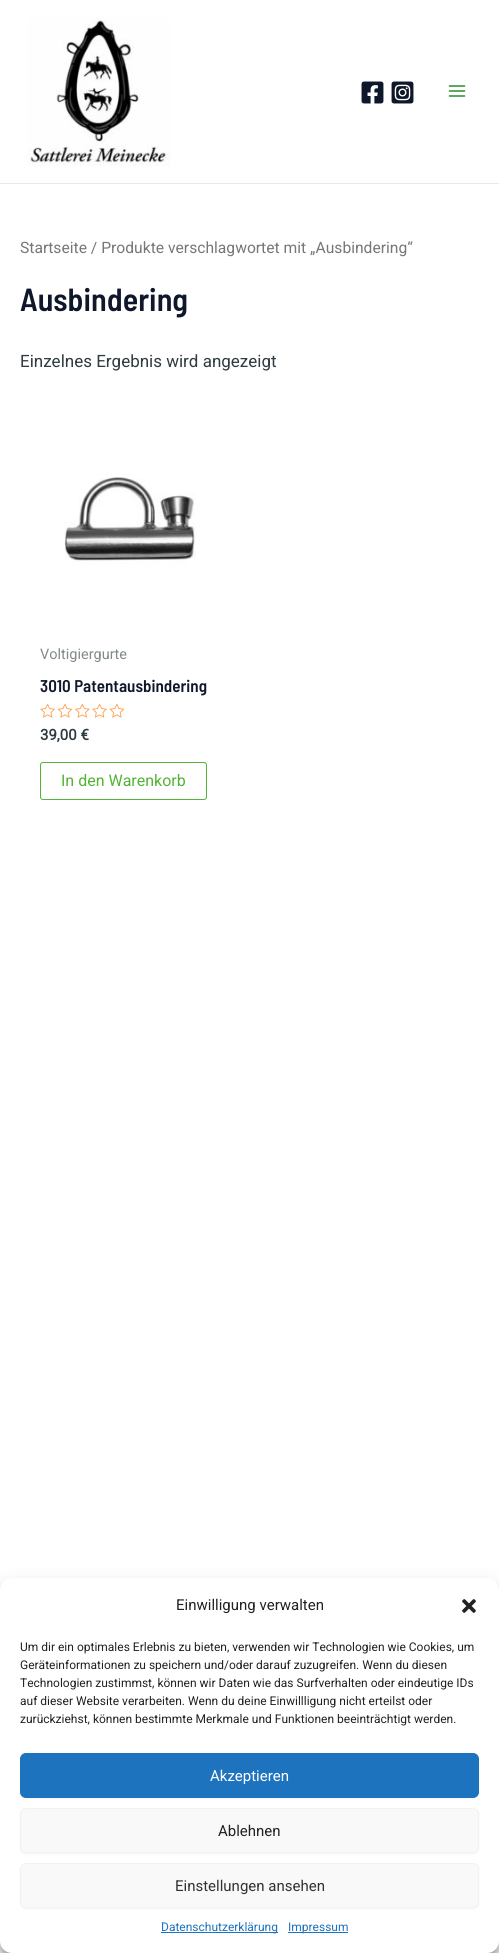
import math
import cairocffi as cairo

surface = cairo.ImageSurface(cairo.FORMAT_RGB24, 499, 1953)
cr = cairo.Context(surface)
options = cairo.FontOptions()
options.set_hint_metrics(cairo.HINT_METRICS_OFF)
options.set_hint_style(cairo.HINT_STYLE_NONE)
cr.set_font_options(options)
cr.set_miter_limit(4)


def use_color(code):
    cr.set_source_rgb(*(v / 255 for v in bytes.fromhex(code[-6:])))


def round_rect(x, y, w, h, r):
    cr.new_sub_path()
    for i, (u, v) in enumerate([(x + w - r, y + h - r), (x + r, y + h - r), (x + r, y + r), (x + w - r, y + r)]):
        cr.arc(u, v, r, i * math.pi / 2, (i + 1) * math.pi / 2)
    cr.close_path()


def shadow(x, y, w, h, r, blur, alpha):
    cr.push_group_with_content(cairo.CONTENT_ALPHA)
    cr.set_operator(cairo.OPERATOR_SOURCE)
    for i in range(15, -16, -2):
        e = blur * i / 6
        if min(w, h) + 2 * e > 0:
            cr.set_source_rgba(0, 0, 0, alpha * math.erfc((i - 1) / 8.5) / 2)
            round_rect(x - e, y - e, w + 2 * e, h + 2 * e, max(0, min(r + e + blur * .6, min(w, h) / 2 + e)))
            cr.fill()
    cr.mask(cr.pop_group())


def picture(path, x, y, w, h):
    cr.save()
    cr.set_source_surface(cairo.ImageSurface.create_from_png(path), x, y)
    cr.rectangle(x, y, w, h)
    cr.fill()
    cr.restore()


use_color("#ffffff")
cr.paint()
use_color("#eaeaea")
cr.rectangle(0, 183, 499, 1)
cr.fill()
picture("img1.png", 27, 17, 143, 149)
picture("img2.png", 361, 81, 23, 23)
picture("img3.png", 391, 81, 23, 23)
picture("img4.png", 448, 85, 18, 12)
cr.select_font_face("Roboto")
cr.set_font_size(15.65)
use_color("#777777")
cr.move_to(20, 253)
cr.show_text("Startseite / Produkte verschlagwortet mit „Ausbindering“")
cr.select_font_face("Barlow Semi Condensed SemiBold")
cr.set_font_size(32)
use_color("#0f172a")
cr.move_to(20, 311)
cr.show_text("Ausbindering")
cr.select_font_face("Roboto")
cr.set_font_size(17)
use_color("#2f3b40")
cr.move_to(20, 367)
cr.show_text("Einzelnes Ergebnis wird angezeigt")
picture("img5.png", 64, 477, 132, 88)
cr.set_font_size(14.5)
use_color("#82898c")
cr.move_to(40, 659)
cr.show_text("Voltigiergurte")
cr.select_font_face("Barlow Semi Condensed SemiBold")
cr.set_font_size(17)
use_color("#0f172a")
cr.move_to(40, 692)
cr.show_text("3010 Patentausbindering")
picture("img6.png", 40, 704, 84, 14)
cr.select_font_face("Roboto", cairo.FONT_SLANT_NORMAL, cairo.FONT_WEIGHT_BOLD)
cr.set_font_size(15)
use_color("#2f3b40")
cr.move_to(40, 740)
cr.show_text("39,00 €")
round_rect(40.5, 762.5, 166, 37, 2.5)
use_color("#54b435")
cr.set_line_width(1)
cr.stroke()
cr.select_font_face("Roboto")
cr.set_font_size(16)
cr.move_to(61, 786)
cr.show_text("In den Warenkorb")
use_color("#f8f8f8")
cr.rectangle(0, 1941, 499, 12)
cr.fill()
use_color("#000000")
shadow(0, 1584, 499, 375, 12, 3, 0.23)
shadow(0, 1588, 499, 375, 12, 10, 0.19)
use_color("#ffffff")
round_rect(0, 1578, 499, 375, 12)
cr.fill()
cr.set_font_size(15)
use_color("#222222")
cr.move_to(176, 1610)
cr.show_text("Einwilligung verwalten")
picture("img7.png", 462, 1599, 14, 14)
cr.set_font_size(12)
cr.move_to(20, 1651)
cr.show_text("Um dir ein optimales Erlebnis zu bieten, verwenden wir Technologien wie Cookies, um")
cr.move_to(20, 1669)
cr.show_text("Geräteinformationen zu speichern und/oder darauf zuzugreifen. Wenn du diesen")
cr.move_to(20, 1687)
cr.show_text("Technologien zustimmst, können wir Daten wie das Surfverhalten oder eindeutige IDs")
cr.move_to(20, 1705)
cr.show_text("auf dieser Website verarbeiten. Wenn du deine Einwillligung nicht erteilst oder")
cr.move_to(20, 1723)
cr.show_text("zurückziehst, können bestimmte Merkmale und Funktionen beeinträchtigt werden.")
use_color("#000000")
shadow(20, 1754, 459, 45, 6, 1, 0.05)
use_color("#1e73be")
round_rect(20.5, 1753.5, 458, 44, 5.5)
cr.fill_preserve()
cr.stroke()
cr.set_font_size(15)
use_color("#ffffff")
cr.move_to(210, 1781)
cr.show_text("Akzeptieren")
use_color("#000000")
shadow(20, 1809, 459, 45, 6, 1, 0.05)
use_color("#f9f9f9")
round_rect(20.5, 1808.5, 458, 44, 5.5)
cr.fill_preserve()
use_color("#f2f2f2")
cr.stroke()
use_color("#222222")
cr.move_to(218, 1836)
cr.show_text("Ablehnen")
use_color("#000000")
shadow(20, 1864, 459, 45, 6, 1, 0.05)
use_color("#f9f9f9")
round_rect(20.5, 1863.5, 458, 44, 5.5)
cr.fill_preserve()
use_color("#f2f2f2")
cr.stroke()
use_color("#333333")
cr.move_to(175, 1891)
cr.show_text("Einstellungen ansehen")
use_color("#1e73be")
cr.rectangle(161, 1932, 117, 1)
cr.fill()
cr.set_font_size(12)
cr.move_to(161, 1931)
cr.show_text("Datenschutzerklärung")
cr.rectangle(288, 1932, 60, 1)
cr.fill()
cr.move_to(288, 1931)
cr.show_text("Impressum")
surface.write_to_png("result.png")
